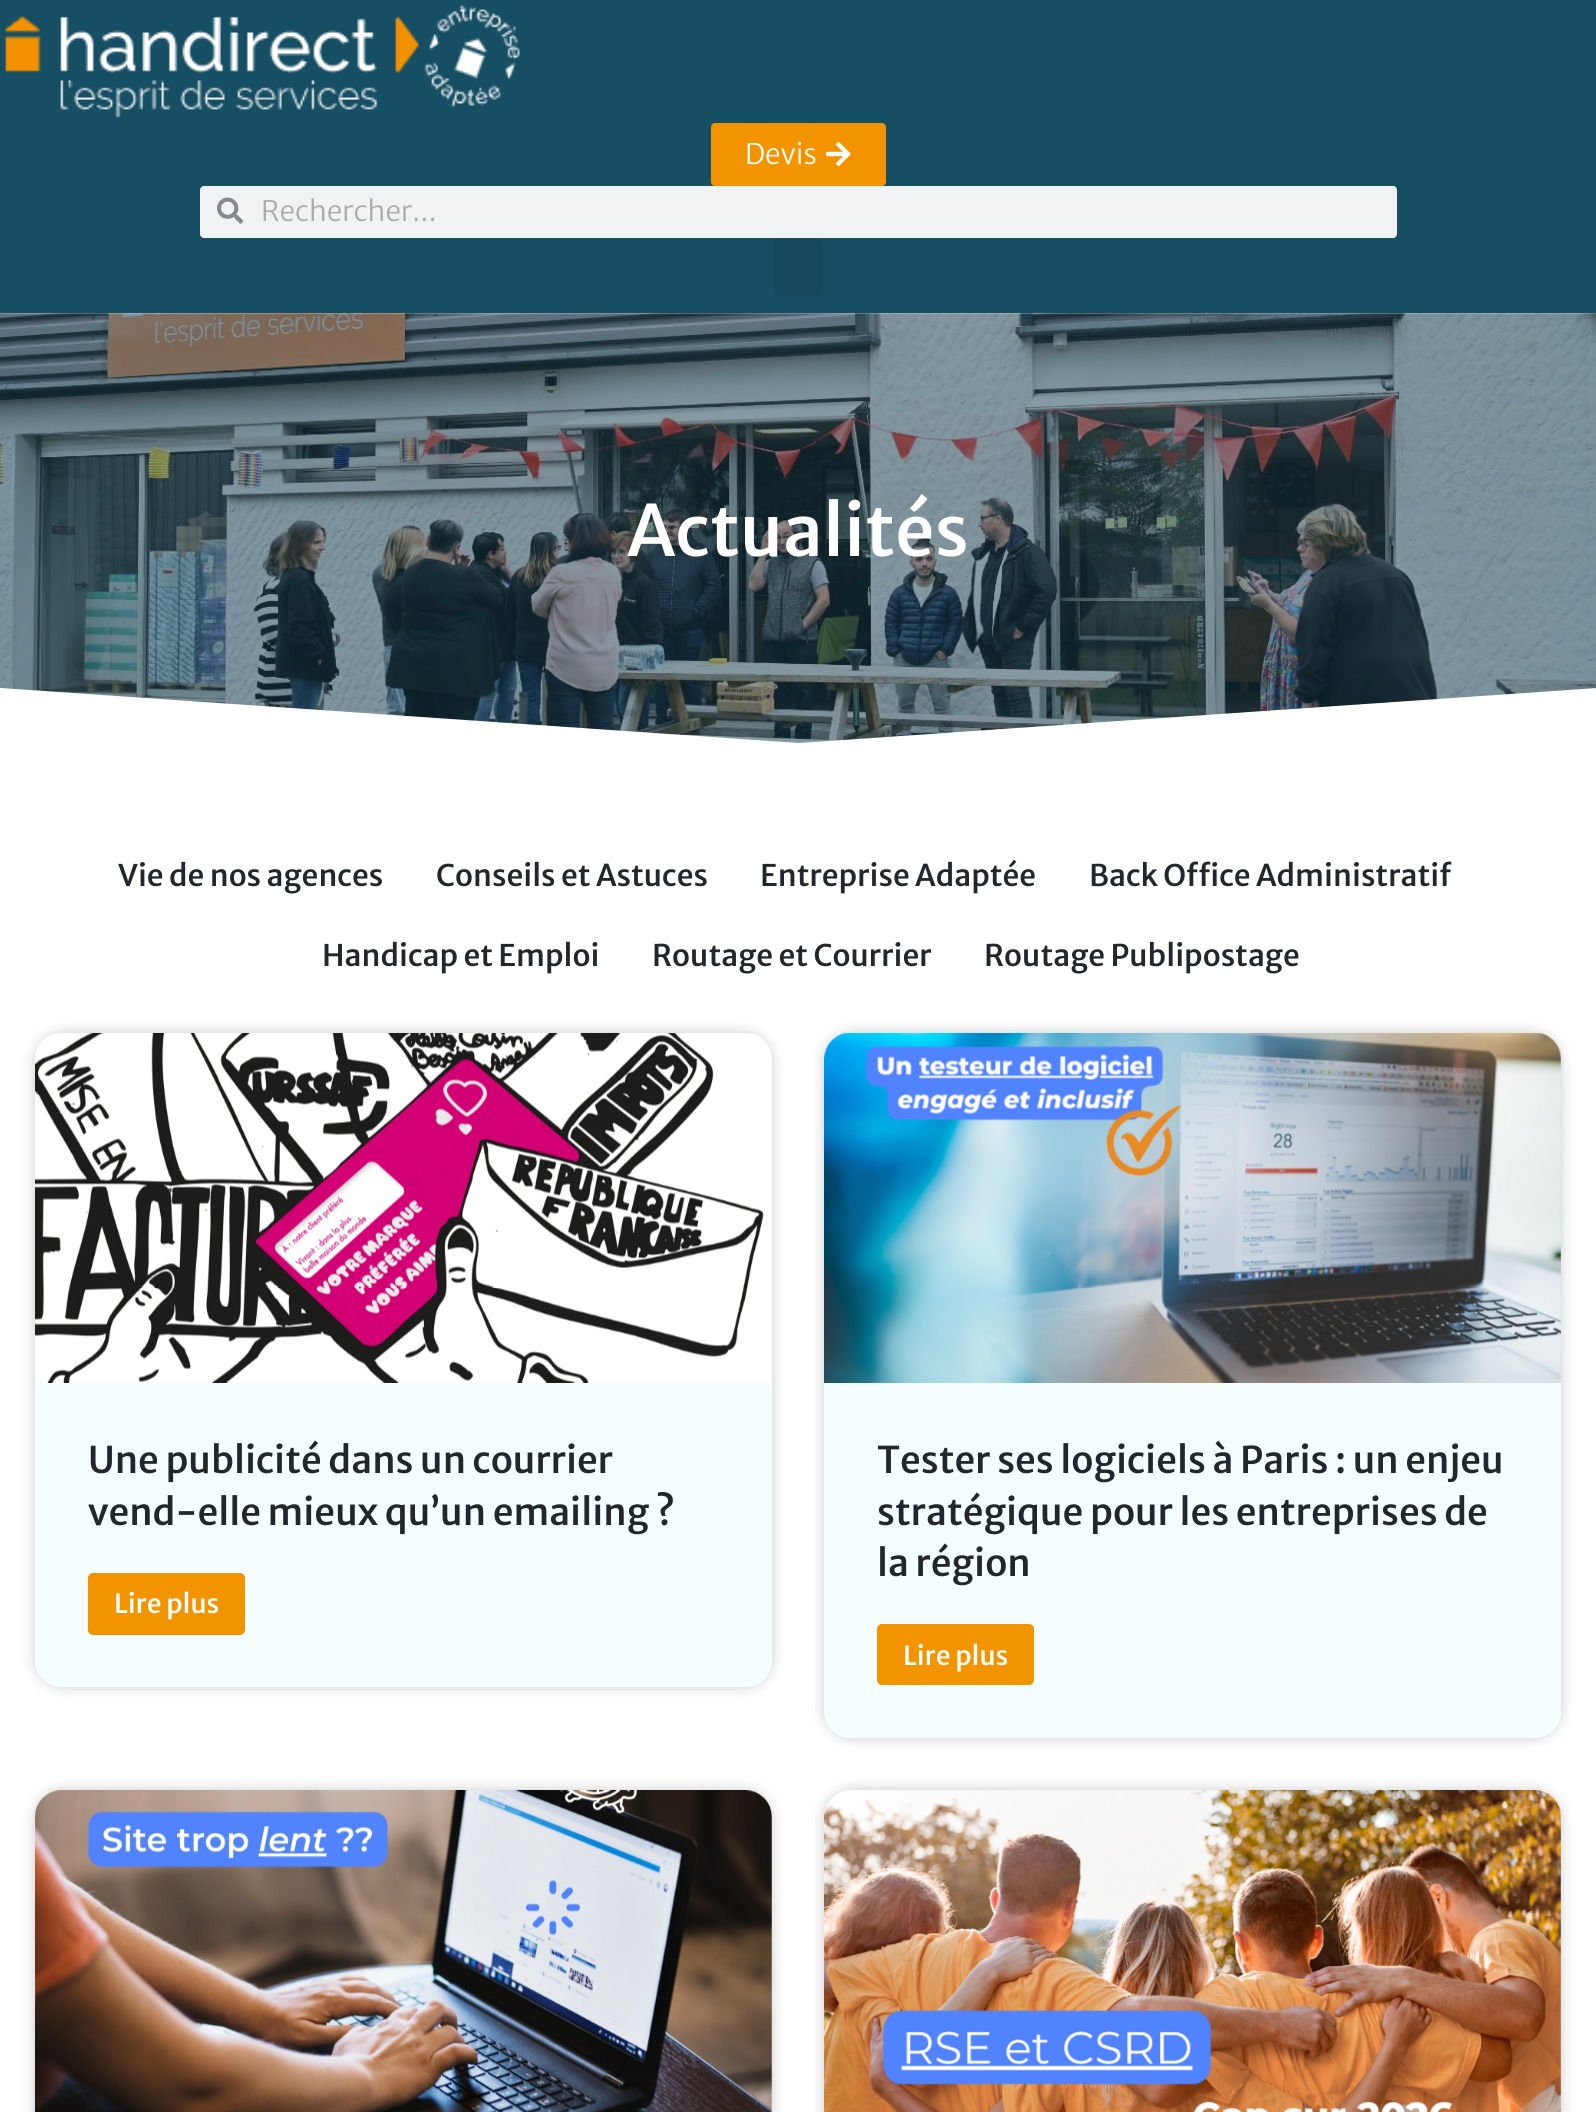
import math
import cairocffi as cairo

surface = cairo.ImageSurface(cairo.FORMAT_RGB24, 1596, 2112)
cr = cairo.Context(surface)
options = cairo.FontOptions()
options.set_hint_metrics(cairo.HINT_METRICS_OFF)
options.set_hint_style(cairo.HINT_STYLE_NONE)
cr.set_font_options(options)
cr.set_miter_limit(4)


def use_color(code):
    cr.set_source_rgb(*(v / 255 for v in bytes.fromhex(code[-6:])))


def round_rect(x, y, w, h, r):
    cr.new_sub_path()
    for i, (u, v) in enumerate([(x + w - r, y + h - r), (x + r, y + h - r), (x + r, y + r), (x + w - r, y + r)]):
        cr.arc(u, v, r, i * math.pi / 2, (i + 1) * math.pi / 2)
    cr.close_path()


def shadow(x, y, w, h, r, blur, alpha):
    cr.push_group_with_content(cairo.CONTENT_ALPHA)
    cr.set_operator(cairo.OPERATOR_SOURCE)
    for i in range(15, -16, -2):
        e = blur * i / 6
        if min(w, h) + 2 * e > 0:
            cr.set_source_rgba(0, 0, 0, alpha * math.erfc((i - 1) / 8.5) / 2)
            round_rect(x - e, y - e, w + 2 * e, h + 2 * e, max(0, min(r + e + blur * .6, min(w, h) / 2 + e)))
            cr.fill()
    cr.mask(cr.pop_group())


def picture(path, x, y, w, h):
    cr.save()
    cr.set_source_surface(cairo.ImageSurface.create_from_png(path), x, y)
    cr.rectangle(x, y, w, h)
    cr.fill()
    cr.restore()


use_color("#ffffff")
cr.paint()
use_color("#164e63")
cr.rectangle(0, 0, 1596, 313)
cr.fill()
picture("img1.png", 5, 5, 515, 113)
use_color("#f29400")
round_rect(711, 123, 175, 63, 4)
cr.fill()
cr.select_font_face("Merriweather Sans Light")
cr.set_font_size(28)
use_color("#ffffff")
cr.move_to(745, 164)
cr.show_text("Devis")
picture("img2.png", 826, 142, 25, 24)
use_color("#f1f2f3")
round_rect(200, 186, 1197, 52, 4)
cr.fill()
picture("img3.png", 217, 197, 27, 27)
use_color("#aaaaaa")
cr.move_to(261, 221)
cr.show_text("Rechercher...")
use_color("#154a5e")
round_rect(774, 238, 49, 58, 5)
cr.fill()
picture("img4.png", 0, 313, 1596, 430)
cr.select_font_face("Merriweather Sans Medium")
cr.set_font_size(70)
use_color("#ffffff")
cr.move_to(627, 556)
cr.show_text("Actualités")
cr.new_path()
cr.move_to(799, 743)
cr.line_to(-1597, 578)
cr.line_to(-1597, 752)
cr.line_to(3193, 752)
cr.line_to(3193, 578)
cr.close_path()
cr.fill()
cr.set_font_size(29.75)
use_color("#21272c")
cr.move_to(118, 886)
cr.show_text("Vie de nos agences")
cr.move_to(436, 886)
cr.show_text("Conseils et Astuces")
cr.move_to(760, 886)
cr.show_text("Entreprise Adaptée")
cr.move_to(1089, 886)
cr.show_text("Back Office Administratif")
cr.move_to(322, 966)
cr.show_text("Handicap et Emploi")
cr.move_to(652, 966)
cr.show_text("Routage et Courrier")
cr.move_to(984, 966)
cr.show_text("Routage Publipostage")
use_color("#000000")
shadow(42, 1040, 723, 640, 19, 9, 0.5)
picture("img5.png", 35, 1033, 737, 350)
use_color("#f5feff")
cr.new_path()
cr.move_to(35, 1383)
cr.line_to(772, 1383)
cr.line_to(772, 1661)
cr.curve_to(772, 1675.5, 760.5, 1687, 746, 1687)
cr.line_to(61, 1687)
cr.curve_to(46.5, 1687, 35, 1675.5, 35, 1661)
cr.close_path()
cr.fill()
cr.set_font_size(36.75)
use_color("#21272c")
cr.move_to(88, 1473)
cr.show_text("Une publicité dans un courrier")
cr.move_to(88, 1525)
cr.show_text("vend-elle mieux qu’un emailing ?")
use_color("#f29400")
round_rect(88, 1573, 157, 62, 5)
cr.fill()
cr.set_font_size(26.25)
use_color("#ffffff")
cr.move_to(114, 1613)
cr.show_text("Lire plus")
use_color("#000000")
shadow(831, 1040, 723, 691, 19, 9, 0.5)
picture("img6.png", 824, 1033, 737, 350)
use_color("#f5feff")
cr.new_path()
cr.move_to(824, 1383)
cr.line_to(1561, 1383)
cr.line_to(1561, 1712)
cr.curve_to(1561, 1726.5, 1549.5, 1738, 1535, 1738)
cr.line_to(850, 1738)
cr.curve_to(835.5, 1738, 824, 1726.5, 824, 1712)
cr.close_path()
cr.fill()
cr.set_font_size(36.75)
use_color("#21272c")
cr.move_to(877, 1473)
cr.show_text("Tester ses logiciels à Paris : un enjeu")
cr.move_to(877, 1525)
cr.show_text("stratégique pour les entreprises de")
cr.move_to(877, 1576)
cr.show_text("la région")
use_color("#f29400")
round_rect(877, 1624, 157, 61, 5)
cr.fill()
cr.set_font_size(26.25)
use_color("#ffffff")
cr.move_to(903, 1665)
cr.show_text("Lire plus")
use_color("#000000")
shadow(42, 1797, 723, 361, 19, 9, 0.5)
picture("img7.png", 35, 1790, 737, 322)
shadow(831, 1797, 723, 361, 19, 9, 0.5)
picture("img8.png", 824, 1790, 737, 322)
surface.write_to_png("result.png")
